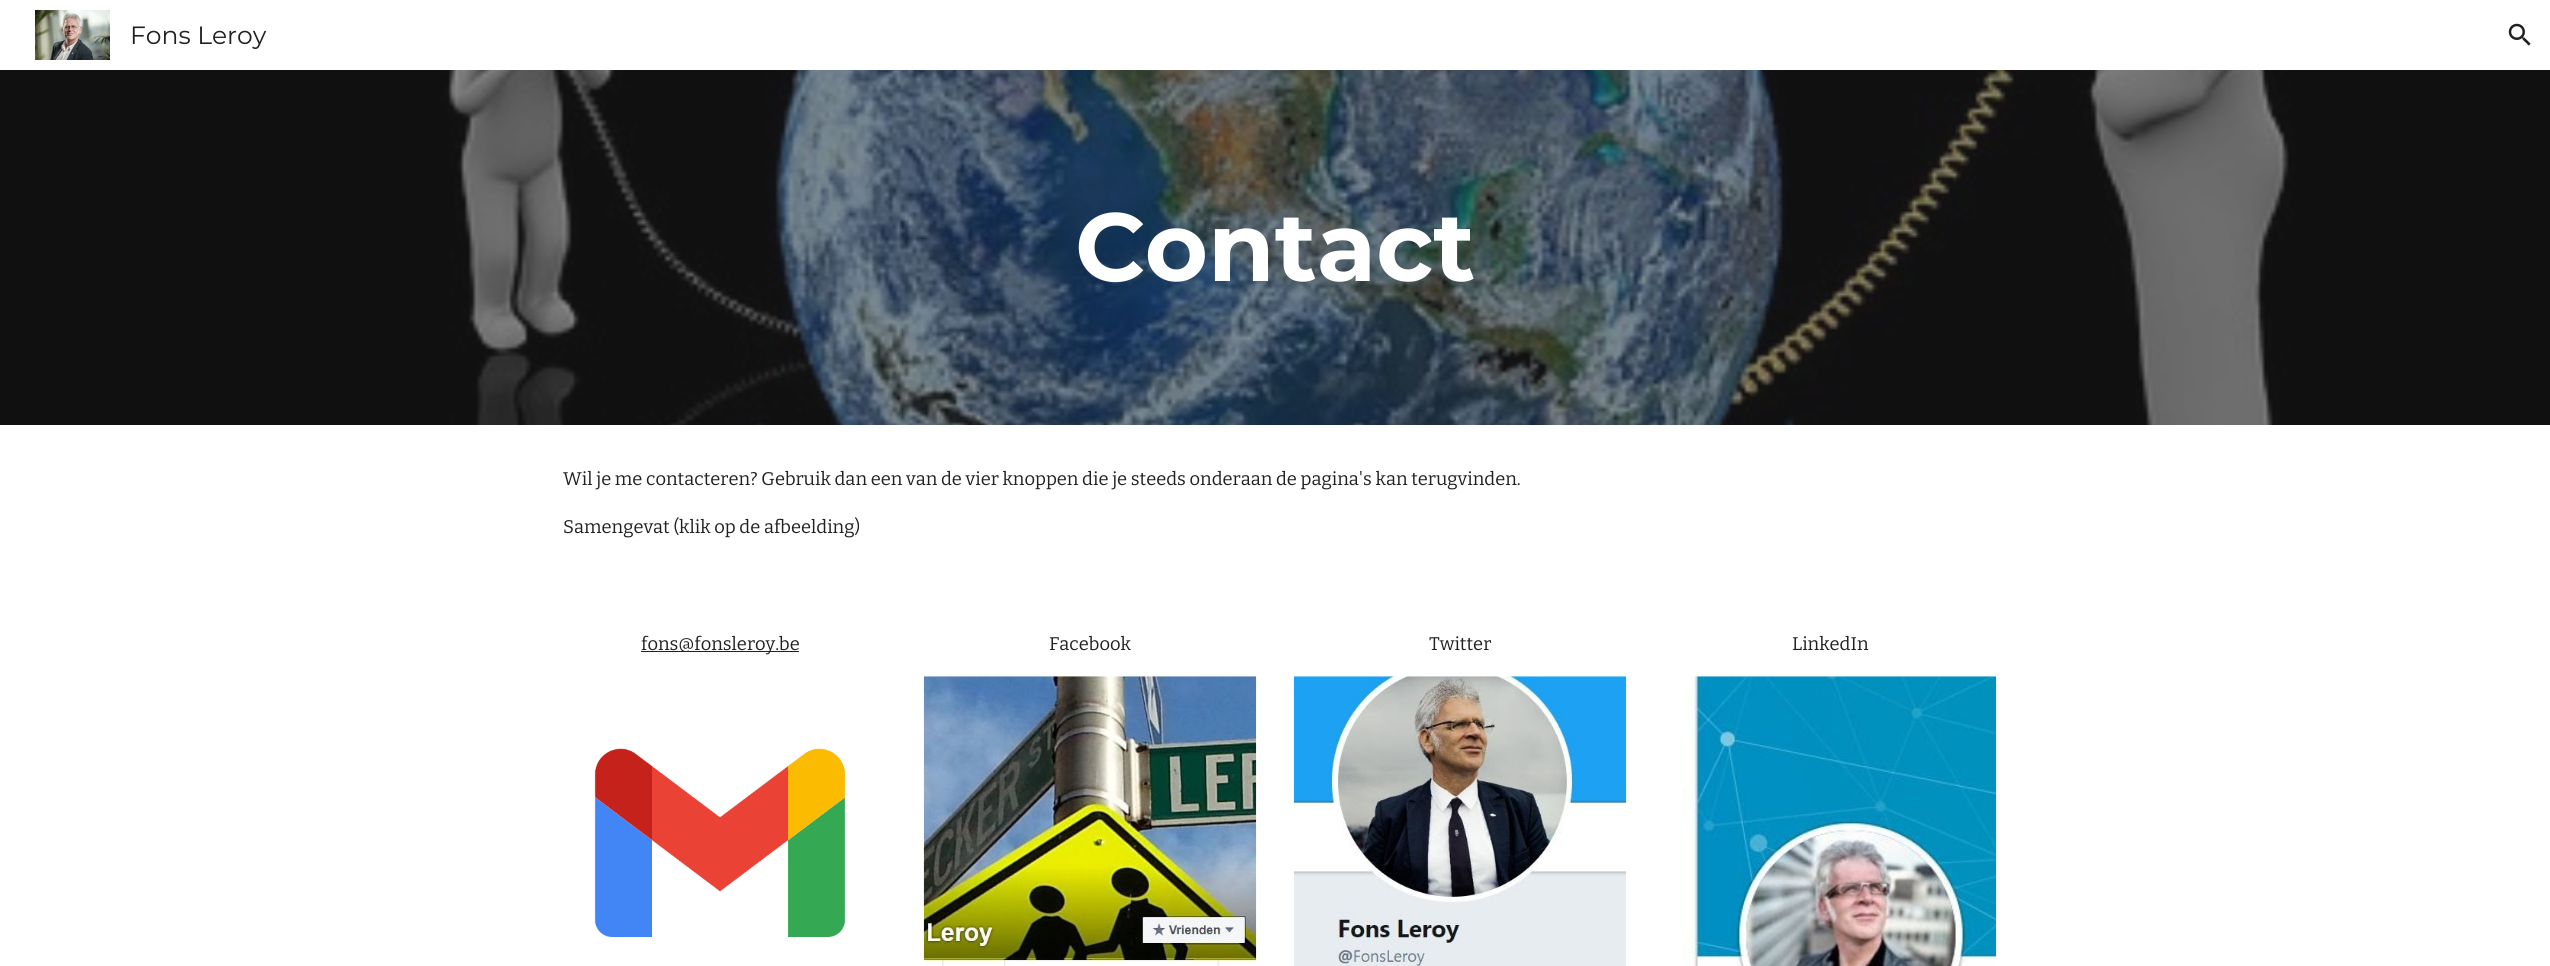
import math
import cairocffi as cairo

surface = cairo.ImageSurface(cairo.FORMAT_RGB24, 2550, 966)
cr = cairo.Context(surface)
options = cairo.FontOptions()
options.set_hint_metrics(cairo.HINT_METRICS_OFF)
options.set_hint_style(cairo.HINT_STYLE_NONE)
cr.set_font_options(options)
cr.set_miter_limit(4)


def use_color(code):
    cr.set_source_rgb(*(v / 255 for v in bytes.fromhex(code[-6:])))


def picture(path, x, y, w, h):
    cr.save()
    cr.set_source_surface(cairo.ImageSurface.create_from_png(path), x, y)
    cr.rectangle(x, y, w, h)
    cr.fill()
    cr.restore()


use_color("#ffffff")
cr.paint()
picture("img1.png", 35, 10, 75, 50)
cr.select_font_face("Montserrat")
cr.set_font_size(25)
use_color("#212121")
cr.move_to(130, 44)
cr.show_text("Fons Leroy")
picture("img2.png", 2508, 23, 23, 23)
picture("img3.png", 0, 70, 2550, 355)
cr.select_font_face("Montserrat", cairo.FONT_SLANT_NORMAL, cairo.FONT_WEIGHT_BOLD)
cr.set_font_size(96.5)
use_color("#ffffff")
cr.move_to(1075, 281)
cr.show_text("Contact")
cr.select_font_face("Bitter")
cr.set_font_size(18.33)
use_color("#212121")
cr.move_to(563, 485)
cr.show_text("Wil je me contacteren? Gebruik dan een van de vier knoppen die je steeds onderaan de pagina's kan terugvinden.")
cr.move_to(563, 533)
cr.show_text("Samengevat (klik op de afbeelding)")
cr.rectangle(641, 651, 158, 1)
cr.fill()
cr.move_to(641, 650)
cr.show_text("fons@fonsleroy.be")
picture("img4.png", 594, 748, 252, 190)
cr.move_to(1049, 650)
cr.show_text("Facebook")
picture("img5.png", 923, 676, 334, 290)
cr.move_to(1429, 650)
cr.show_text("Twitter")
picture("img6.png", 1293, 676, 334, 290)
cr.move_to(1792, 650)
cr.show_text("LinkedIn")
picture("img7.png", 1682, 676, 315, 290)
surface.write_to_png("result.png")
